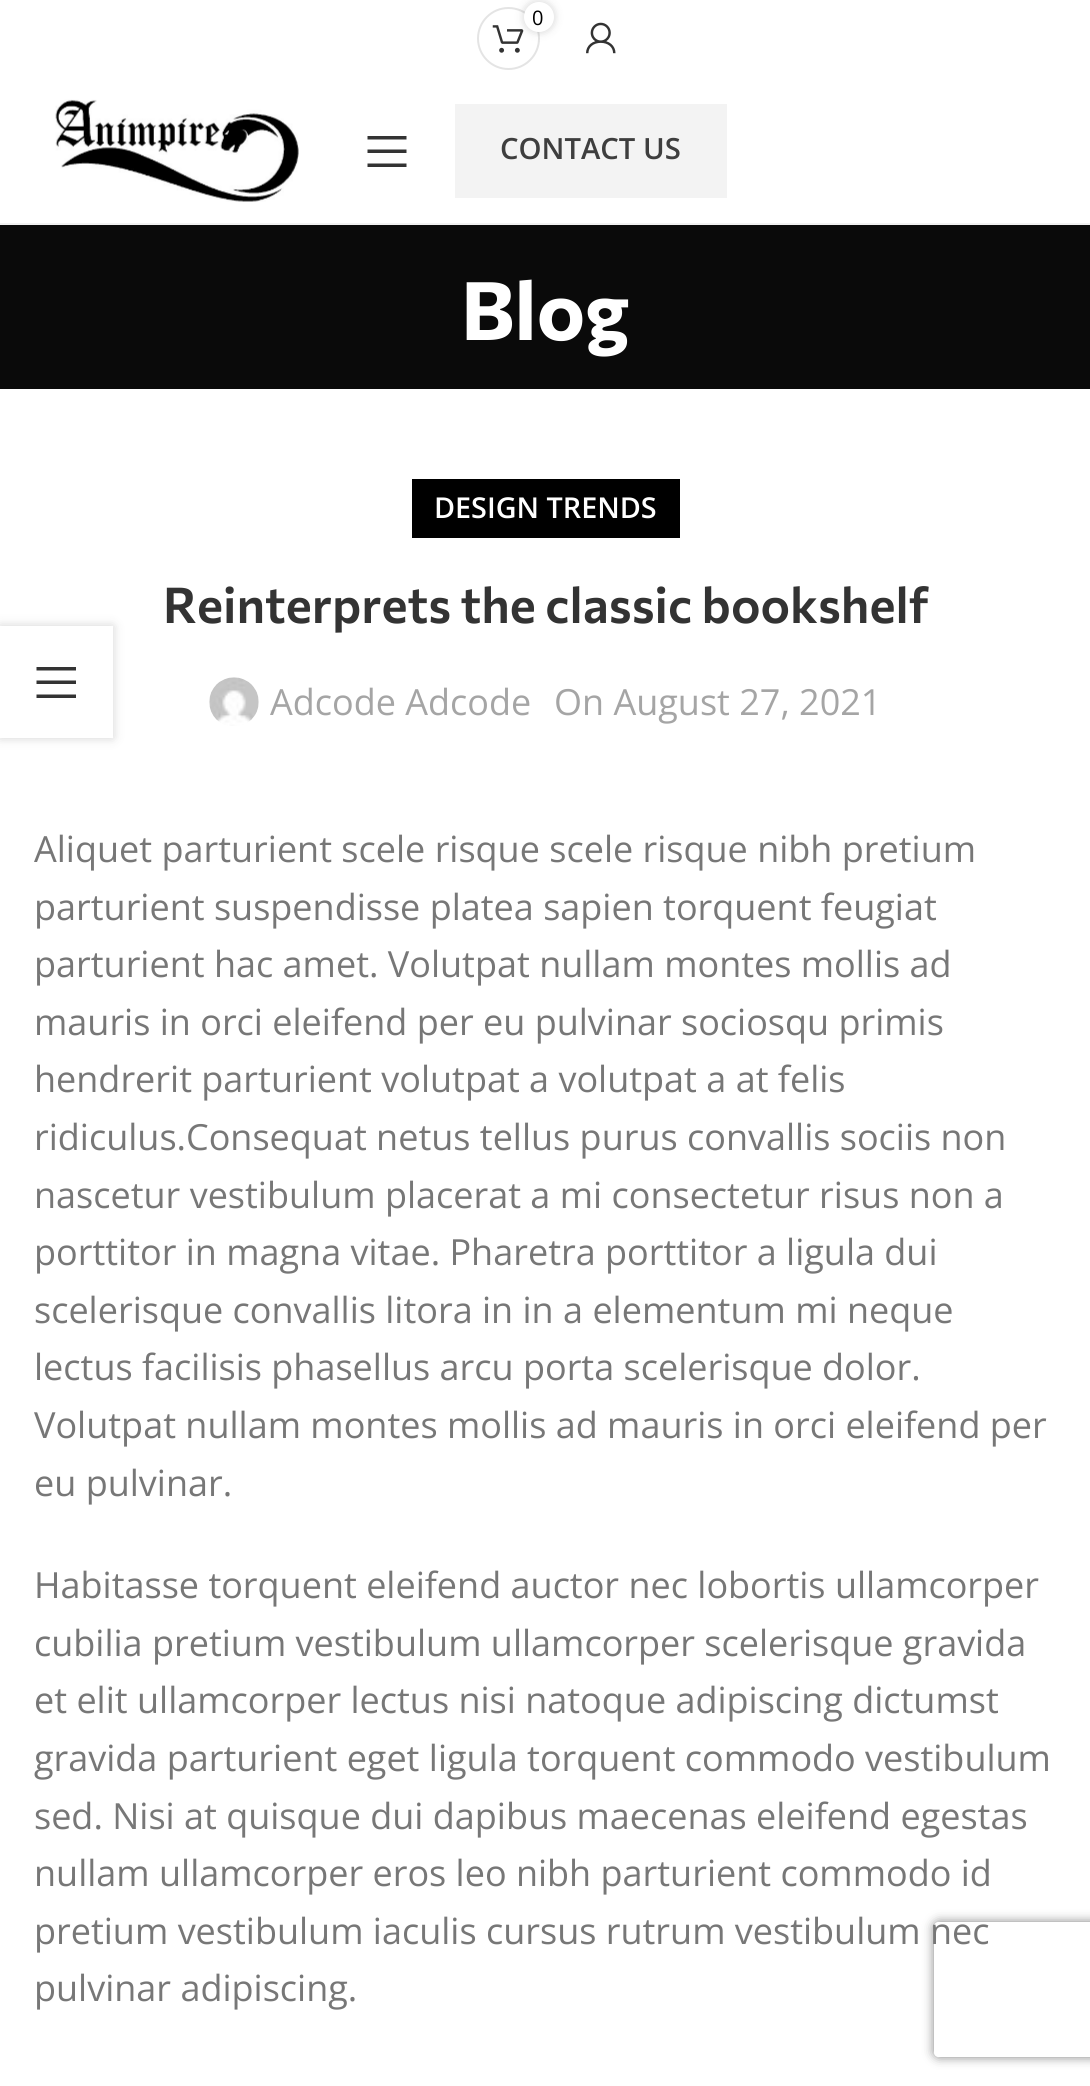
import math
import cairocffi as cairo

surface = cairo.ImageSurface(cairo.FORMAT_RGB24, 1090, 2086)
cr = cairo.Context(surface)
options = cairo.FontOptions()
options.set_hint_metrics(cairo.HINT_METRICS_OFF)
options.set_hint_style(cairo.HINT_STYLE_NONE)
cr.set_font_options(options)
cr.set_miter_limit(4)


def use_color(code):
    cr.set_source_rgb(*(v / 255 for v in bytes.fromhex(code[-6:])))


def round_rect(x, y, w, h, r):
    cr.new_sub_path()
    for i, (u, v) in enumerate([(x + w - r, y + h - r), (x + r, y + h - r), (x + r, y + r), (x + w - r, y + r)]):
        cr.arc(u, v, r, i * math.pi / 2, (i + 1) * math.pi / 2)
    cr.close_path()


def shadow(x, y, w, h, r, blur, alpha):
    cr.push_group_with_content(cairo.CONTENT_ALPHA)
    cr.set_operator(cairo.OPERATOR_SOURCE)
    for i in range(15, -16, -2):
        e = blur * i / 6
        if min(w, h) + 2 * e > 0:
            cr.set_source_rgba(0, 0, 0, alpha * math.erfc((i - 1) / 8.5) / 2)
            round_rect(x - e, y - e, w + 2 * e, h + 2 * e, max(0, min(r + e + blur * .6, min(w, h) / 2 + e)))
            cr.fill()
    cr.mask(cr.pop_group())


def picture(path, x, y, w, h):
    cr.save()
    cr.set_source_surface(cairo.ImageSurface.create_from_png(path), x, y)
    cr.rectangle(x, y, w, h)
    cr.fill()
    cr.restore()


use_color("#ffffff")
cr.paint()
cr.arc(508.5, 38.5, 30.5, 0, 2 * math.pi)
use_color("#e4e4e4")
cr.stroke()
picture("img1.png", 492, 25, 32, 28)
use_color("#000000")
shadow(524, 2, 30, 30, 15, 4.5, 0.17)
use_color("#ffffff")
cr.arc(539, 17, 15, 0, 2 * math.pi)
cr.fill()
cr.select_font_face("Open Sans")
cr.set_font_size(20)
use_color("#000000")
cr.move_to(532, 25)
cr.show_text("0")
picture("img2.png", 586, 22, 30, 32)
use_color("#f2f2f2")
cr.rectangle(0, 223, 1090, 2)
cr.fill()
picture("img3.png", 55, 99, 244, 103)
use_color("#333333")
cr.new_path()
cr.move_to(367.5, 139.5)
cr.line_to(406.5, 139.5)
cr.line_to(406.5, 136)
cr.line_to(367.5, 136)
cr.close_path()
cr.move_to(367.5, 153)
cr.line_to(406.5, 153)
cr.line_to(406.5, 149.5)
cr.line_to(367.5, 149.5)
cr.close_path()
cr.move_to(367.5, 167)
cr.line_to(406.5, 167)
cr.line_to(406.5, 163.5)
cr.line_to(367.5, 163.5)
cr.close_path()
cr.fill()
use_color("#f3f3f3")
cr.rectangle(455, 104, 272, 94)
cr.fill()
cr.select_font_face("Open Sans SemiBold")
cr.set_font_size(29.25)
use_color("#3e3e3e")
cr.move_to(500, 159)
cr.show_text("CONTACT US")
use_color("#0a0a0a")
cr.rectangle(0, 225, 1090, 164)
cr.fill()
cr.select_font_face("Commissioner", cairo.FONT_SLANT_NORMAL, cairo.FONT_WEIGHT_BOLD)
cr.set_font_size(81)
use_color("#ffffff")
cr.move_to(461, 340)
cr.show_text("Blog")
use_color("#000000")
cr.rectangle(412, 479, 268, 59)
cr.fill()
cr.select_font_face("Open Sans SemiBold")
cr.set_font_size(28.75)
use_color("#ffffff")
cr.move_to(434, 518)
cr.show_text("DESIGN TRENDS")
cr.select_font_face("Commissioner SemiBold")
cr.set_font_size(49.5)
use_color("#333333")
cr.move_to(163, 623)
cr.show_text("Reinterprets the classic bookshelf")
picture("img4.png", 209, 677, 50, 49)
cr.select_font_face("Open Sans")
cr.set_font_size(36)
use_color("#a5a5a5")
cr.move_to(270, 715)
cr.show_text("Adcode Adcode")
cr.move_to(554, 715)
cr.show_text("On August 27, 2021")
use_color("#777777")
cr.move_to(34, 862)
cr.show_text("Aliquet parturient scele risque scele risque nibh pretium")
cr.move_to(34, 920)
cr.show_text("parturient suspendisse platea sapien torquent feugiat")
cr.move_to(34, 977)
cr.show_text("parturient hac amet. Volutpat nullam montes mollis ad")
cr.move_to(34, 1035)
cr.show_text("mauris in orci eleifend per eu pulvinar sociosqu primis")
cr.move_to(34, 1092)
cr.show_text("hendrerit parturient volutpat a volutpat a at felis")
cr.move_to(34, 1150)
cr.show_text("ridiculus.Consequat netus tellus purus convallis sociis non")
cr.move_to(34, 1208)
cr.show_text("nascetur vestibulum placerat a mi consectetur risus non a")
cr.move_to(34, 1265)
cr.show_text("porttitor in magna vitae. Pharetra porttitor a ligula dui")
cr.move_to(34, 1323)
cr.show_text("scelerisque convallis litora in in a elementum mi neque")
cr.move_to(34, 1380)
cr.show_text("lectus facilisis phasellus arcu porta scelerisque dolor.")
cr.move_to(34, 1438)
cr.show_text("Volutpat nullam montes mollis ad mauris in orci eleifend per")
cr.move_to(34, 1496)
cr.show_text("eu pulvinar.")
cr.move_to(34, 1598)
cr.show_text("Habitasse torquent eleifend auctor nec lobortis ullamcorper")
cr.move_to(34, 1656)
cr.show_text("cubilia pretium vestibulum ullamcorper scelerisque gravida")
cr.move_to(34, 1713)
cr.show_text("et elit ullamcorper lectus nisi natoque adipiscing dictumst")
cr.move_to(34, 1771)
cr.show_text("gravida parturient eget ligula torquent commodo vestibulum")
cr.move_to(34, 1829)
cr.show_text("sed. Nisi at quisque dui dapibus maecenas eleifend egestas")
cr.move_to(34, 1886)
cr.show_text("nullam ullamcorper eros leo nibh parturient commodo id")
cr.move_to(34, 1944)
cr.show_text("pretium vestibulum iaculis cursus rutrum vestibulum nec")
cr.move_to(34, 2001)
cr.show_text("pulvinar adipiscing.")
cr.save()
cr.set_fill_rule(cairo.FILL_RULE_EVEN_ODD)
cr.new_path()
cr.move_to(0, 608)
cr.line_to(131, 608)
cr.line_to(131, 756)
cr.line_to(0, 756)
cr.close_path()
cr.move_to(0, 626)
cr.line_to(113, 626)
cr.line_to(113, 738)
cr.line_to(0, 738)
cr.close_path()
cr.clip()
use_color("#000000")
shadow(0, 626, 113, 112, 0, 5.5, 0.17)
cr.restore()
cr.set_source_rgba(1, 1, 1, 0.9)
cr.rectangle(112, 626, 1, 112)
cr.fill()
use_color("#333333")
cr.new_path()
cr.move_to(36.5, 670.5)
cr.line_to(76, 670.5)
cr.line_to(76, 667)
cr.line_to(36.5, 667)
cr.close_path()
cr.move_to(36.5, 684)
cr.line_to(76, 684)
cr.line_to(76, 680.5)
cr.line_to(36.5, 680.5)
cr.close_path()
cr.move_to(36.5, 698)
cr.line_to(76, 698)
cr.line_to(76, 694.5)
cr.line_to(36.5, 694.5)
cr.close_path()
cr.fill()
cr.save()
cr.set_fill_rule(cairo.FILL_RULE_EVEN_ODD)
cr.new_path()
cr.move_to(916, 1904)
cr.line_to(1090, 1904)
cr.line_to(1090, 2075)
cr.line_to(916, 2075)
cr.close_path()
cr.move_to(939, 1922)
cr.line_to(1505, 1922)
cr.curve_to(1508, 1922, 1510, 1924, 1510, 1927)
cr.line_to(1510, 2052)
cr.curve_to(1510, 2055, 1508, 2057, 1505, 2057)
cr.line_to(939, 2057)
cr.curve_to(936, 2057, 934, 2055, 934, 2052)
cr.line_to(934, 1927)
cr.curve_to(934, 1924, 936, 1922, 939, 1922)
cr.close_path()
cr.clip()
use_color("#808080")
shadow(934, 1922, 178, 135, 5, 5.5, 1)
cr.restore()
surface.write_to_png("result.png")
